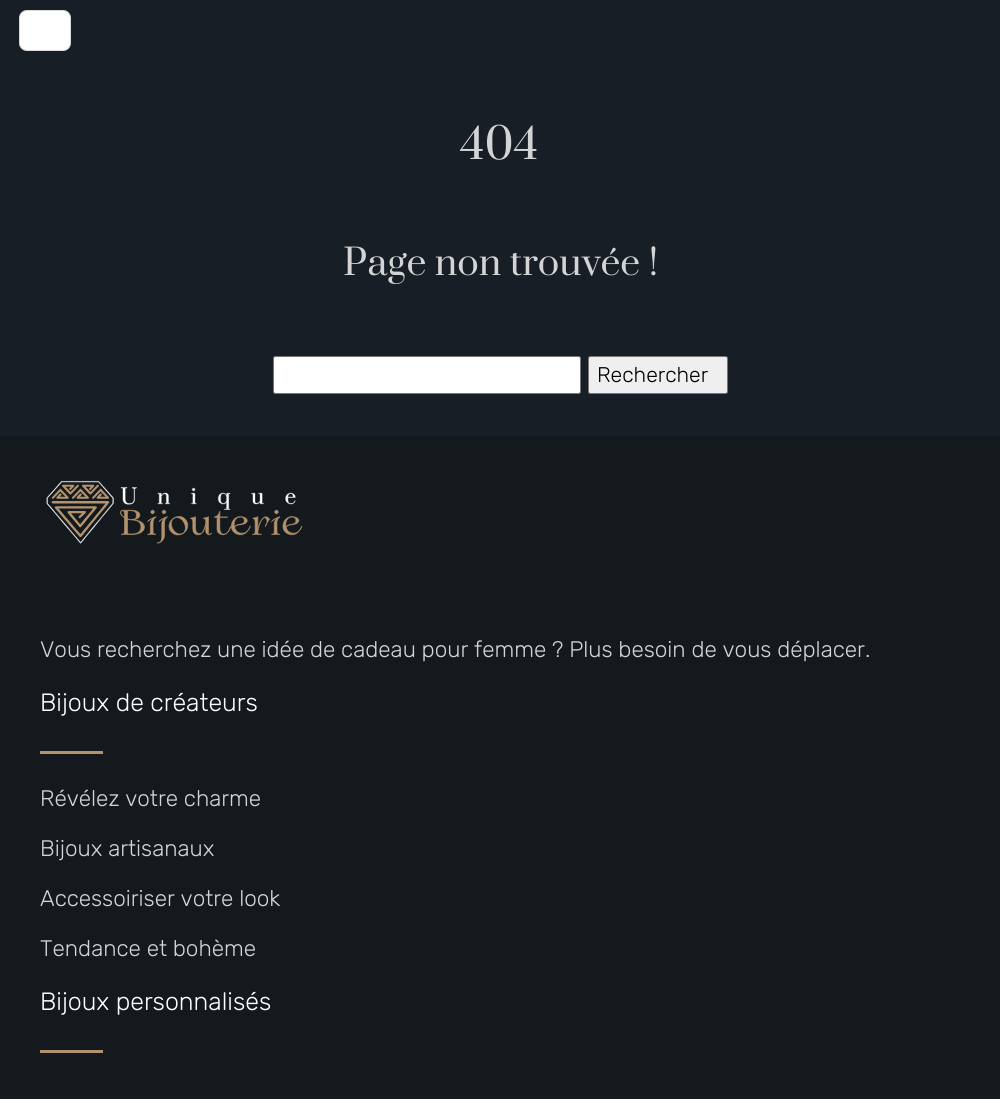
import math
import cairocffi as cairo

surface = cairo.ImageSurface(cairo.FORMAT_RGB24, 1000, 1099)
cr = cairo.Context(surface)
options = cairo.FontOptions()
options.set_hint_metrics(cairo.HINT_METRICS_OFF)
options.set_hint_style(cairo.HINT_STYLE_NONE)
cr.set_font_options(options)
cr.set_miter_limit(4)


def use_color(code):
    cr.set_source_rgb(*(v / 255 for v in bytes.fromhex(code[-6:])))


def round_rect(x, y, w, h, r):
    cr.new_sub_path()
    for i, (u, v) in enumerate([(x + w - r, y + h - r), (x + r, y + h - r), (x + r, y + r), (x + w - r, y + r)]):
        cr.arc(u, v, r, i * math.pi / 2, (i + 1) * math.pi / 2)
    cr.close_path()


def picture(path, x, y, w, h):
    cr.save()
    cr.set_source_surface(cairo.ImageSurface.create_from_png(path), x, y)
    cr.rectangle(x, y, w, h)
    cr.fill()
    cr.restore()


use_color("#171e26")
cr.paint()
use_color("#ffffff")
round_rect(19, 10, 52, 41, 8)
cr.fill()
round_rect(19.5, 10.5, 51, 40, 7.5)
cr.set_source_rgba(0, 0, 0, 0.15)
cr.set_line_width(1)
cr.stroke()
cr.select_font_face("Prata")
cr.set_font_size(42)
use_color("#d4d4d4")
cr.move_to(460, 159)
cr.show_text("404")
cr.set_font_size(35.5)
cr.move_to(343, 275)
cr.show_text("Page non trouvée !")
use_color("#ffffff")
round_rect(273.5, 356.5, 307, 37, 2)
cr.fill_preserve()
use_color("#767676")
cr.stroke()
use_color("#efefef")
round_rect(588.5, 356.5, 139, 37, 2)
cr.fill_preserve()
use_color("#767676")
cr.stroke()
cr.select_font_face("Rubik Light")
cr.set_font_size(21.25)
use_color("#000000")
cr.move_to(597, 382)
cr.show_text("Rechercher")
use_color("#14191e")
cr.rectangle(0, 436, 1000, 663)
cr.fill()
picture("img1.png", 46, 480, 257, 64)
cr.set_font_size(22.5)
use_color("#d4d4d4")
cr.move_to(40, 657)
cr.show_text("Vous recherchez une idée de cadeau pour femme ? Plus besoin de vous déplacer.")
cr.set_font_size(25)
use_color("#ffffff")
cr.move_to(40, 711)
cr.show_text("Bijoux de créateurs")
use_color("#b3936d")
cr.rectangle(40, 751, 63, 3)
cr.fill()
cr.set_font_size(22.5)
use_color("#d4d4d4")
cr.move_to(40, 806)
cr.show_text("Révélez votre charme")
cr.move_to(40, 856)
cr.show_text("Bijoux artisanaux")
cr.move_to(40, 906)
cr.show_text("Accessoiriser votre look")
cr.move_to(40, 956)
cr.show_text("Tendance et bohème")
cr.set_font_size(25)
use_color("#ffffff")
cr.move_to(40, 1010)
cr.show_text("Bijoux personnalisés")
use_color("#b3936d")
cr.rectangle(40, 1050, 63, 3)
cr.fill()
surface.write_to_png("result.png")
